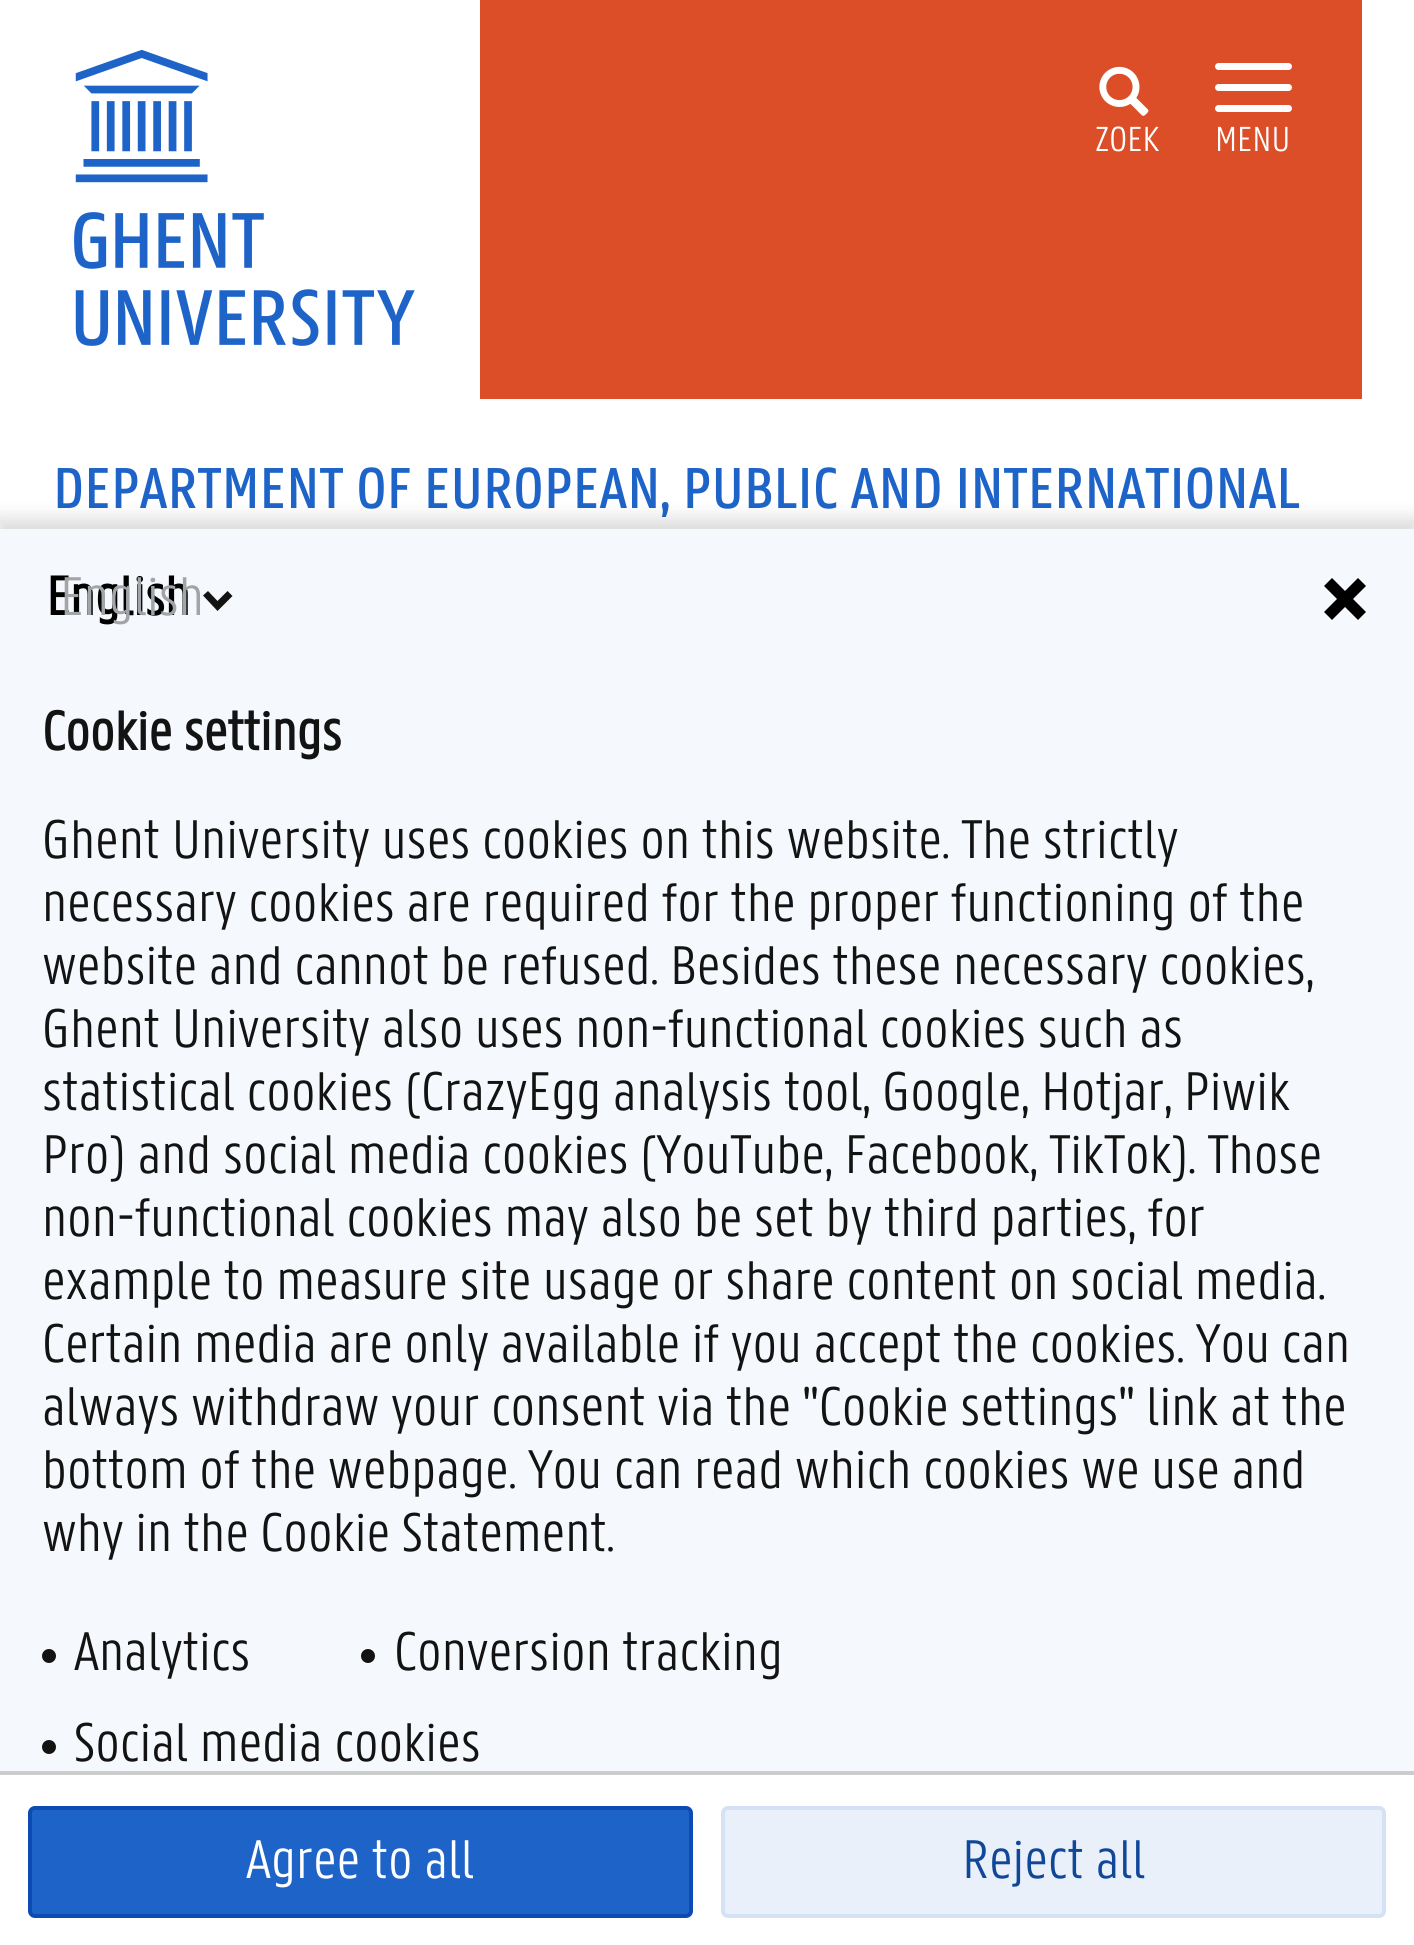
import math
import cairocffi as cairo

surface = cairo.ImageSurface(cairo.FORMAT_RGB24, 1414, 1945)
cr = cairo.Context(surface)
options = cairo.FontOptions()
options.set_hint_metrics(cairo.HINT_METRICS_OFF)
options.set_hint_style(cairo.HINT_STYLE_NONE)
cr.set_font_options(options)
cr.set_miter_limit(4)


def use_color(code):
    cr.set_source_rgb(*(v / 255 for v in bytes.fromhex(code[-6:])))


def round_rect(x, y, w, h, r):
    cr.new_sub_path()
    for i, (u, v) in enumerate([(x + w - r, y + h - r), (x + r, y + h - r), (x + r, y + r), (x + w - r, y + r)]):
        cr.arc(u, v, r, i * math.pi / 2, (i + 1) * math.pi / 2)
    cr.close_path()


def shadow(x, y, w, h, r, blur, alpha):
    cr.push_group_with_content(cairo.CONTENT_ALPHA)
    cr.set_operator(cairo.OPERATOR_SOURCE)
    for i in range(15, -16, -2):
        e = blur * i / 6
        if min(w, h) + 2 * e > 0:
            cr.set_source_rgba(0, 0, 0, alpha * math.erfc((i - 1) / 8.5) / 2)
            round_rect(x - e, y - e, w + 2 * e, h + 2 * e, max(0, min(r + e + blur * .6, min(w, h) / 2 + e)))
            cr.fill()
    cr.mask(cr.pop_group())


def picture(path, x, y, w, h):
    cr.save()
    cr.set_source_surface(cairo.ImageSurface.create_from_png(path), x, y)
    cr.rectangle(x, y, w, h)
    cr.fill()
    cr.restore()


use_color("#ffffff")
cr.paint()
use_color("#dc4e28")
cr.rectangle(480, 0, 882, 399)
cr.fill()
picture("img1.png", 74, 49, 341, 297)
picture("img2.png", 1099, 66, 50, 50)
cr.select_font_face("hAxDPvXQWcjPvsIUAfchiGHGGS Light")
cr.set_font_size(38)
use_color("#ffffff")
cr.move_to(1095, 151)
cr.show_text("ZOEK")
round_rect(1215, 63, 77, 7, 3.5)
cr.fill()
round_rect(1215, 84, 77, 7, 3.5)
cr.fill()
round_rect(1215, 105, 77, 7, 3.5)
cr.fill()
cr.move_to(1215, 151)
cr.show_text("MENU")
cr.select_font_face("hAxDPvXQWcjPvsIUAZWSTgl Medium")
cr.set_font_size(63)
use_color("#1e64c8")
cr.move_to(53, 508)
cr.show_text("DEPARTMENT OF EUROPEAN, PUBLIC AND INTERNATIONAL")
use_color("#000000")
shadow(-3, 518, 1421, 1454, 0, 9, 0.14)
use_color("#f5f8fc")
cr.rectangle(0, 529, 1414, 1242)
cr.fill()
cr.select_font_face("hAxDPvXQWcjPvsIUAfchiGHGGS", cairo.FONT_SLANT_NORMAL, cairo.FONT_WEIGHT_BOLD)
cr.set_font_size(59.5)
use_color("#000000")
cr.move_to(46, 615)
cr.show_text("English")
use_color("#131313")
cr.new_path()
cr.move_to(217.5, 601)
cr.line_to(227.5, 591)
cr.line_to(232.5, 596)
cr.line_to(217.5, 611)
cr.line_to(203, 595.5)
cr.line_to(208, 591)
cr.close_path()
cr.fill()
cr.select_font_face("hAxDPvXQWcjPvsIUAfchiGHGGS Light")
use_color("#a2a4a7")
cr.move_to(60, 615)
cr.show_text("English")
use_color("#000000")
cr.new_path()
cr.move_to(1324, 586)
cr.line_to(1332, 578)
cr.line_to(1366, 612)
cr.line_to(1358, 620)
cr.line_to(1324, 586)
cr.fill()
cr.new_path()
cr.move_to(1358, 578)
cr.line_to(1366, 586)
cr.line_to(1332, 620)
cr.line_to(1324, 612)
cr.line_to(1358, 578)
cr.fill()
cr.select_font_face("hAxDPvXQWcjPvsIUAfchiGHGGS", cairo.FONT_SLANT_NORMAL, cairo.FONT_WEIGHT_BOLD)
use_color("#131313")
cr.move_to(42, 750)
cr.show_text("Cookie settings")
cr.select_font_face("hAxDPvXQWcjPvsIUAfchiGHGGS Light")
cr.move_to(42, 858)
cr.show_text("Ghent University uses cookies on this website. The strictly")
cr.move_to(42, 921)
cr.show_text("necessary cookies are required for the proper functioning of the")
cr.move_to(42, 984)
cr.show_text("website and cannot be refused. Besides these necessary cookies,")
cr.move_to(42, 1047)
cr.show_text("Ghent University also uses non-functional cookies such as")
cr.move_to(42, 1110)
cr.show_text("statistical cookies (CrazyEgg analysis tool, Google, Hotjar, Piwik")
cr.move_to(42, 1173)
cr.show_text("Pro) and social media cookies (YouTube, Facebook, TikTok). Those")
cr.move_to(42, 1236)
cr.show_text("non-functional cookies may also be set by third parties, for")
cr.move_to(42, 1299)
cr.show_text("example to measure site usage or share content on social media.")
cr.move_to(42, 1362)
cr.show_text("Certain media are only available if you accept the cookies. You can")
cr.move_to(42, 1425)
cr.show_text("always withdraw your consent via the \"Cookie settings\" link at the")
cr.move_to(42, 1488)
cr.show_text("bottom of the webpage. You can read which cookies we use and")
cr.move_to(42, 1551)
cr.show_text("why in the Cookie Statement.")
cr.new_path()
cr.arc(49, 1656, 7, 0, 2 * math.pi)
cr.fill()
cr.move_to(74, 1670)
cr.show_text("Analytics")
cr.new_path()
cr.arc(368, 1656, 7, 0, 2 * math.pi)
cr.fill()
cr.move_to(394, 1670)
cr.show_text("Conversion tracking")
cr.new_path()
cr.arc(49, 1747, 7, 0, 2 * math.pi)
cr.fill()
cr.move_to(74, 1761)
cr.show_text("Social media cookies")
use_color("#ffffff")
cr.rectangle(0, 1775, 1414, 170)
cr.fill()
use_color("#cccccc")
cr.rectangle(0, 1771, 1414, 4)
cr.fill()
use_color("#1e64c8")
round_rect(30, 1808, 661, 108, 5)
cr.fill_preserve()
use_color("#0b4bb3")
cr.set_line_width(4)
cr.stroke()
use_color("#ffffff")
cr.move_to(246, 1878)
cr.show_text("Agree to all")
use_color("#e9f0fa")
round_rect(721, 1806, 665, 112, 7)
cr.fill()
round_rect(723, 1808, 661, 108, 5)
cr.set_source_rgba(0.118, 0.392, 0.784, 0.1)
cr.stroke()
use_color("#114799")
cr.move_to(962, 1878)
cr.show_text("Reject all")
surface.write_to_png("result.png")
